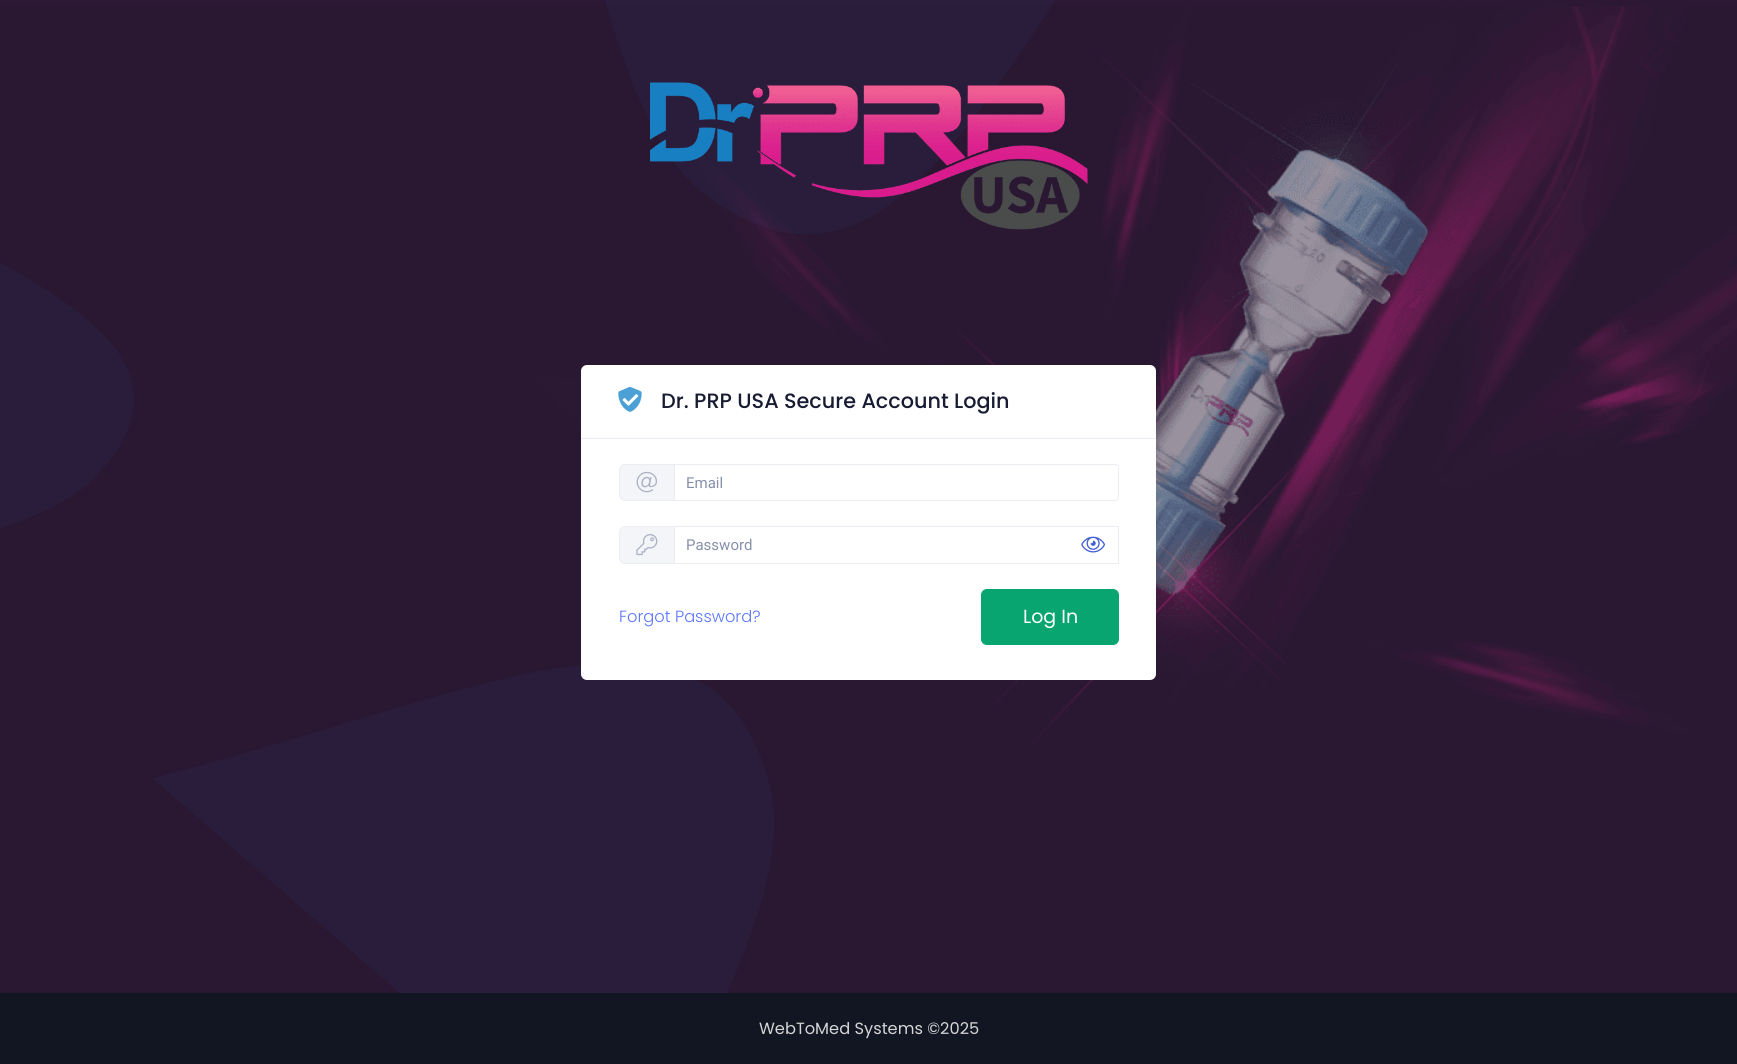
import math
import cairocffi as cairo

surface = cairo.ImageSurface(cairo.FORMAT_RGB24, 1737, 1064)
cr = cairo.Context(surface)
options = cairo.FontOptions()
options.set_hint_metrics(cairo.HINT_METRICS_OFF)
options.set_hint_style(cairo.HINT_STYLE_NONE)
cr.set_font_options(options)
cr.set_miter_limit(4)


def use_color(code):
    cr.set_source_rgb(*(v / 255 for v in bytes.fromhex(code[-6:])))


def round_rect(x, y, w, h, r):
    cr.new_sub_path()
    for i, (u, v) in enumerate([(x + w - r, y + h - r), (x + r, y + h - r), (x + r, y + r), (x + w - r, y + r)]):
        cr.arc(u, v, r, i * math.pi / 2, (i + 1) * math.pi / 2)
    cr.close_path()


def picture(path, x, y, w, h):
    cr.save()
    cr.set_source_surface(cairo.ImageSurface.create_from_png(path), x, y)
    cr.rectangle(x, y, w, h)
    cr.fill()
    cr.restore()


use_color("#ffffff")
cr.paint()
picture("img1.png", 0, 0, 1737, 993)
picture("img2.png", 650, 82, 438, 148)
use_color("#ffffff")
round_rect(581, 365, 575, 315, 6)
cr.fill()
use_color("#ebedf3")
cr.rectangle(581, 438, 575, 1)
cr.fill()
picture("img3.png", 618, 386, 24, 26)
cr.select_font_face("Poppins Medium")
cr.set_font_size(20.75)
use_color("#181c32")
cr.move_to(661, 408)
cr.show_text("Dr. PRP USA Secure Account Login")
use_color("#f4f5f8")
cr.new_path()
cr.move_to(625, 464.5)
cr.line_to(674.5, 464.5)
cr.line_to(674.5, 500.5)
cr.line_to(625, 500.5)
cr.curve_to(622, 500.5, 619.5, 498, 619.5, 495)
cr.line_to(619.5, 470)
cr.curve_to(619.5, 467, 622, 464.5, 625, 464.5)
cr.close_path()
cr.fill_preserve()
use_color("#ebedf2")
cr.set_line_width(1)
cr.stroke()
picture("img4.png", 636, 471, 21, 22)
cr.new_path()
cr.move_to(674.5, 464.5)
cr.line_to(1115, 464.5)
cr.curve_to(1117, 464.5, 1118.5, 466, 1118.5, 468)
cr.line_to(1118.5, 497)
cr.curve_to(1118.5, 499, 1117, 500.5, 1115, 500.5)
cr.line_to(674.5, 500.5)
cr.close_path()
cr.stroke()
cr.select_font_face("Roboto")
cr.set_font_size(15)
use_color("#8790aa")
cr.move_to(686, 488)
cr.show_text("Email")
use_color("#f4f5f8")
cr.new_path()
cr.move_to(625, 526.5)
cr.line_to(674.5, 526.5)
cr.line_to(674.5, 563.5)
cr.line_to(625, 563.5)
cr.curve_to(622, 563.5, 619.5, 561, 619.5, 558)
cr.line_to(619.5, 532)
cr.curve_to(619.5, 529, 622, 526.5, 625, 526.5)
cr.close_path()
cr.fill_preserve()
use_color("#ebedf2")
cr.stroke()
picture("img5.png", 636, 534, 22, 22)
cr.rectangle(674.5, 526.5, 444, 37)
cr.stroke()
use_color("#8790aa")
cr.move_to(686, 550)
cr.show_text("Password")
picture("img6.png", 1081, 536, 24, 17)
cr.select_font_face("Poppins Light")
cr.set_font_size(16.25)
use_color("#5b74ff")
cr.move_to(619, 622)
cr.show_text("Forgot Password?")
use_color("#08a570")
round_rect(981.5, 589.5, 137, 55, 5.5)
cr.fill_preserve()
cr.stroke()
cr.select_font_face("Poppins")
cr.set_font_size(19)
use_color("#ffffff")
cr.move_to(1023, 623)
cr.show_text("Log In")
use_color("#121623")
cr.rectangle(0, 993, 1737, 71)
cr.fill()
cr.set_font_size(16.25)
use_color("#d5d5d5")
cr.move_to(759, 1034)
cr.show_text("WebToMed Systems ©2025")
surface.write_to_png("result.png")
